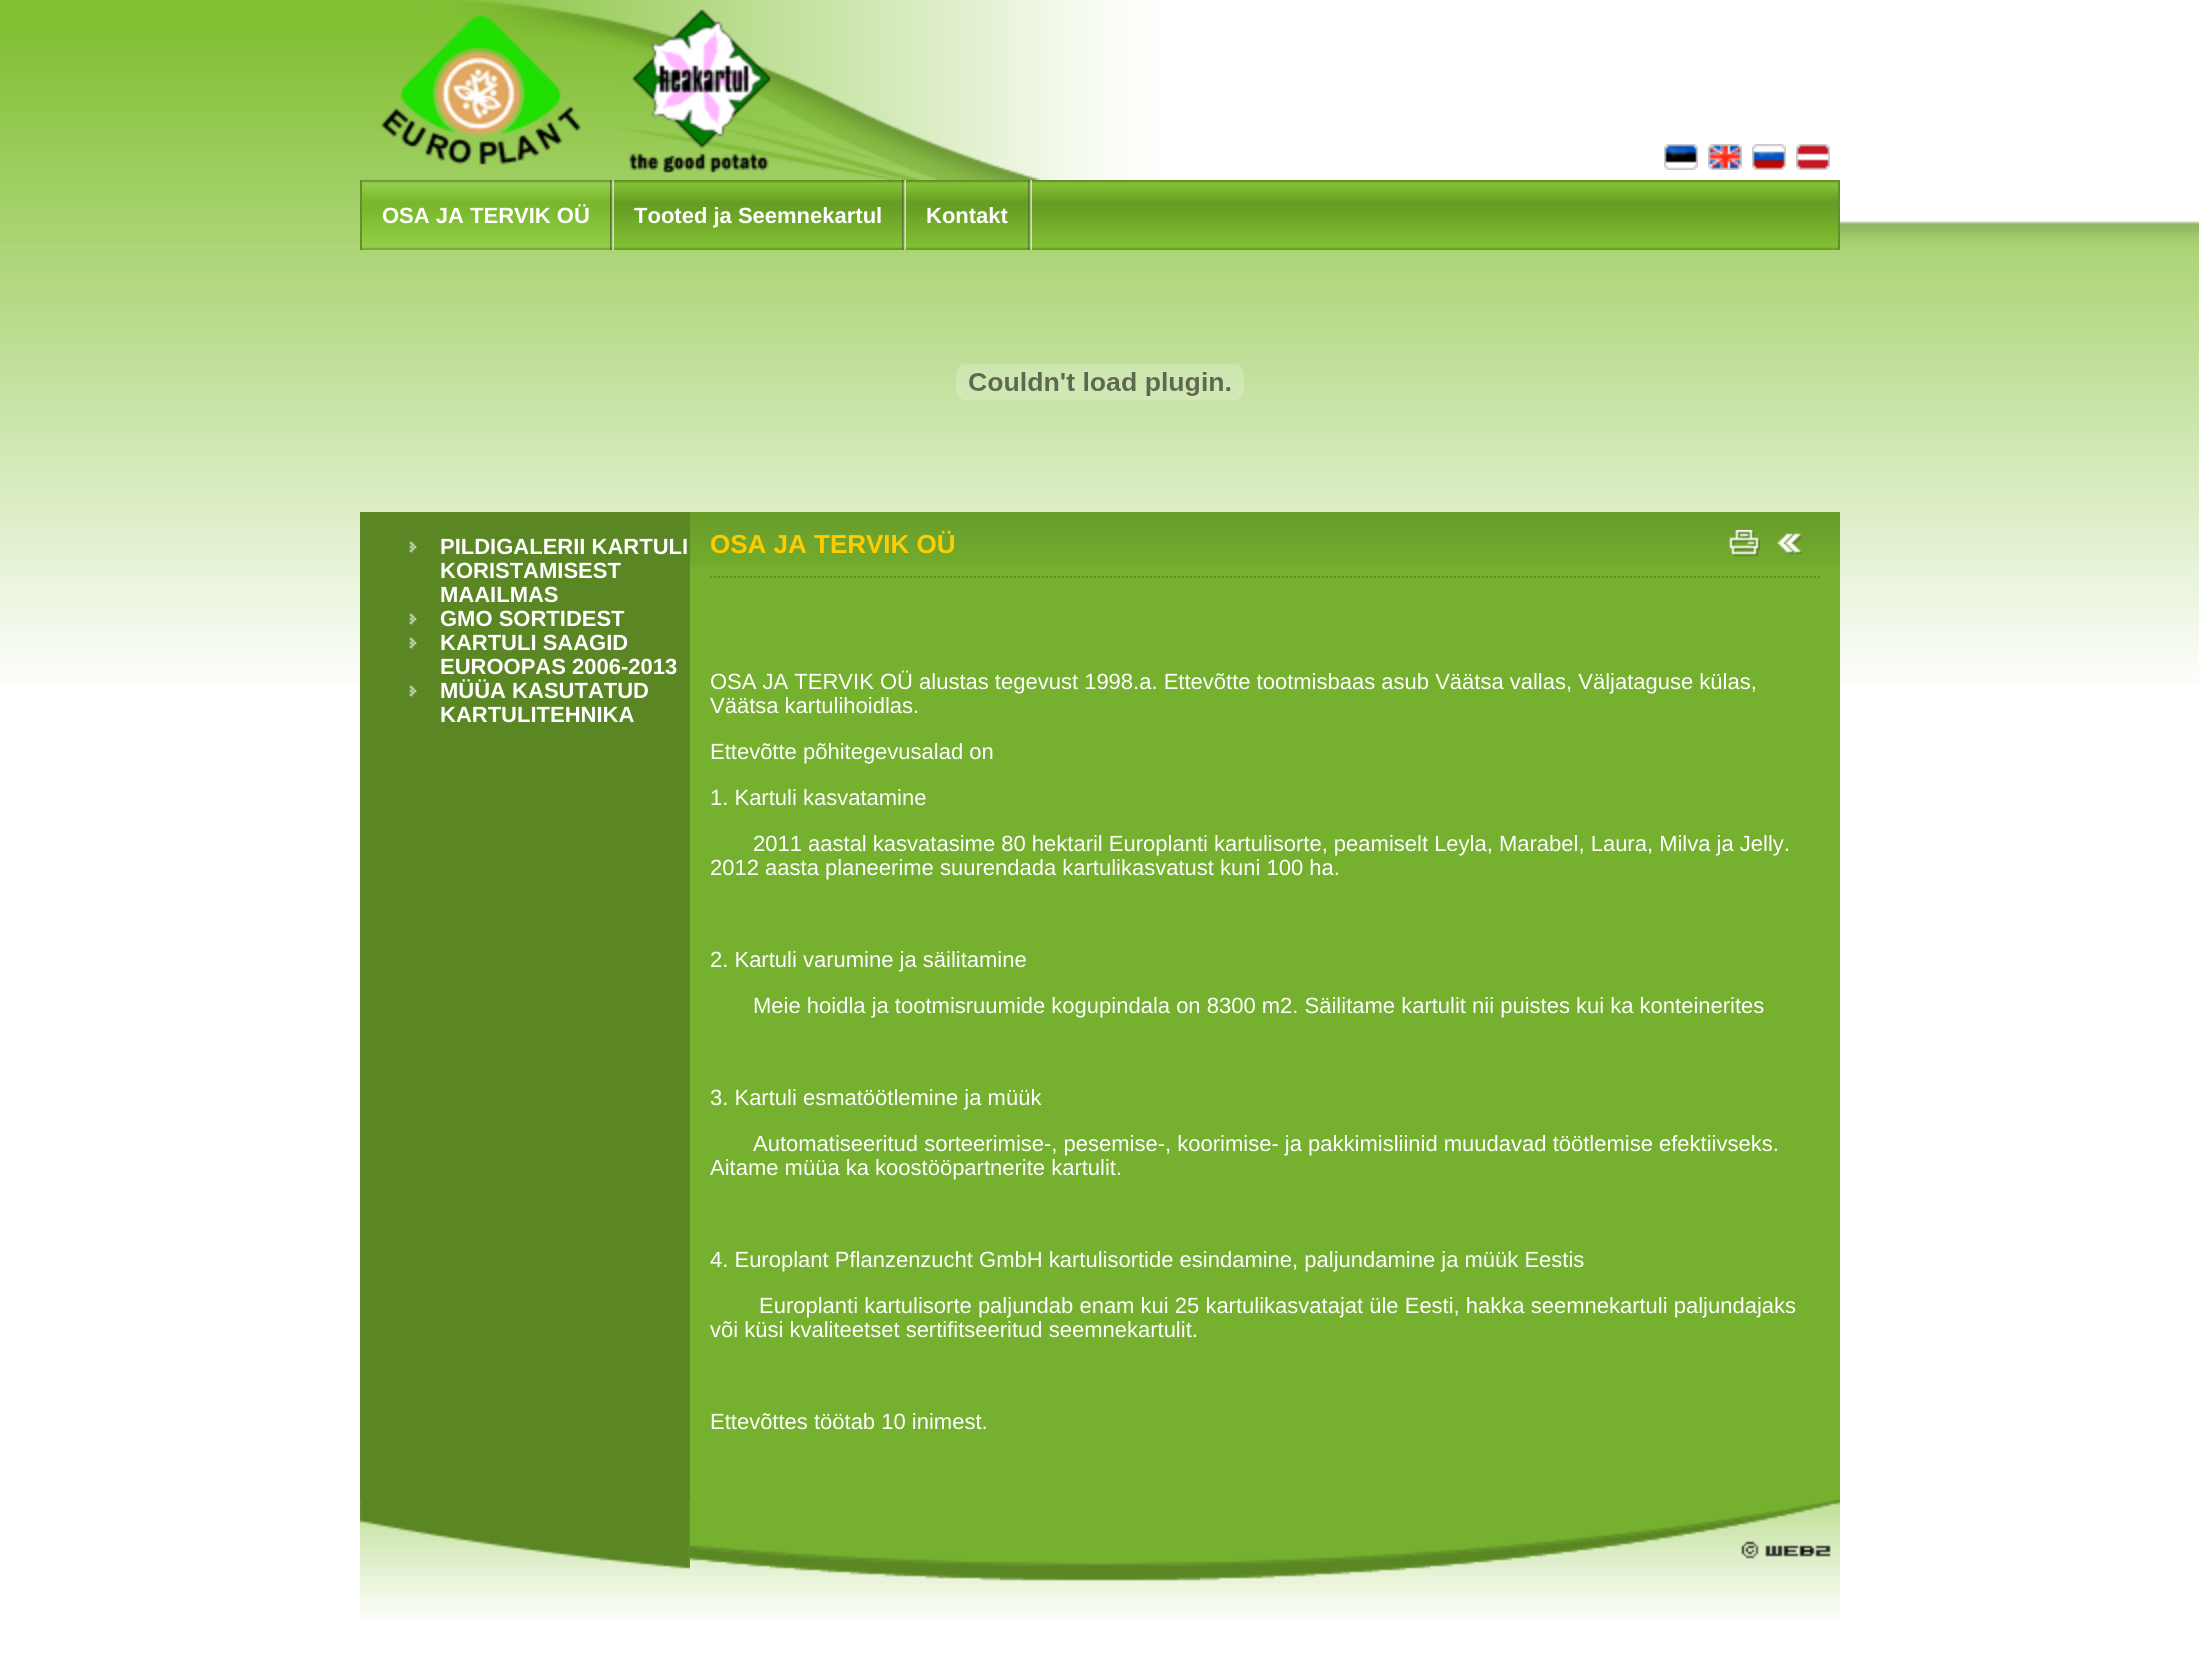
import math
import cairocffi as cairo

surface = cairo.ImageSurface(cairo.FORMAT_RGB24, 2199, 1655)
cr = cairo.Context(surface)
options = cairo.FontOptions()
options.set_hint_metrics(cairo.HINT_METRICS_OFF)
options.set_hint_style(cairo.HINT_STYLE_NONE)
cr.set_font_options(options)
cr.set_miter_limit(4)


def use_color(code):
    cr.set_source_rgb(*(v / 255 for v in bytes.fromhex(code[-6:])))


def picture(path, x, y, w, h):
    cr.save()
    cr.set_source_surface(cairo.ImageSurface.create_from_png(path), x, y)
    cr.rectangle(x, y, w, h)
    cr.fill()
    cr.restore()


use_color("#ffffff")
cr.paint()
picture("img1.png", 0, 0, 360, 685)
picture("img2.png", 360, 0, 1480, 512)
picture("img3.png", 381, 0, 779, 180)
use_color("#ffffff")
cr.rectangle(1160, 0, 680, 180)
cr.fill()
picture("img4.png", 1664, 144, 34, 26)
picture("img5.png", 1708, 144, 34, 26)
picture("img6.png", 1752, 144, 34, 26)
picture("img7.png", 1796, 144, 34, 26)
picture("img8.png", 614, 180, 1224, 70)
use_color("#629226")
cr.rectangle(1838, 180, 2, 70)
cr.fill()
cr.rectangle(360, 180, 2, 70)
cr.fill()
picture("img9.png", 362, 180, 248, 70)
cr.select_font_face("Liberation Sans", cairo.FONT_SLANT_NORMAL, cairo.FONT_WEIGHT_BOLD)
cr.set_font_size(22)
use_color("#ffffff")
cr.move_to(382, 223)
cr.show_text("OSA JA TERVIK OÜ")
picture("img10.png", 610, 180, 4, 70)
cr.move_to(634, 223)
cr.show_text("Tooted ja Seemnekartul")
picture("img10.png", 902, 180, 4, 70)
cr.move_to(926, 223)
cr.show_text("Kontakt")
picture("img10.png", 1028, 180, 4, 70)
picture("img11.png", 956, 364, 288, 36)
use_color("#5a8624")
cr.rectangle(360, 512, 330, 988)
cr.fill()
picture("img12.png", 409, 541, 8, 12)
use_color("#ffffff")
cr.move_to(440, 554)
cr.show_text("PILDIGALERII KARTULI")
cr.move_to(440, 578)
cr.show_text("KORISTAMISEST")
cr.move_to(440, 602)
cr.show_text("MAAILMAS")
picture("img12.png", 409, 613, 8, 12)
cr.move_to(440, 626)
cr.show_text("GMO SORTIDEST")
picture("img12.png", 409, 637, 8, 12)
cr.move_to(440, 650)
cr.show_text("KARTULI SAAGID")
cr.move_to(440, 674)
cr.show_text("EUROOPAS 2006-2013")
picture("img12.png", 409, 685, 8, 12)
cr.move_to(440, 698)
cr.show_text("MÜÜA KASUTATUD")
cr.move_to(440, 722)
cr.show_text("KARTULITEHNIKA")
use_color("#75b02f")
cr.rectangle(690, 567, 1150, 933)
cr.fill()
picture("img13.png", 690, 512, 1150, 55)
cr.new_path()
cr.move_to(710, 577)
cr.line_to(1474, 577)
use_color("#608e27")
cr.set_dash([2, 2])
cr.stroke()
cr.set_font_size(26)
use_color("#ffcc00")
cr.move_to(710, 553)
cr.show_text("OSA JA TERVIK OÜ")
cr.new_path()
cr.move_to(1474, 577)
cr.line_to(1820, 577)
use_color("#608e27")
cr.stroke()
picture("img14.png", 1729, 530, 31, 27)
picture("img15.png", 1777, 533, 26, 22)
cr.select_font_face("Liberation Sans")
cr.set_font_size(22)
use_color("#ffffff")
cr.move_to(710, 689)
cr.show_text("OSA JA TERVIK OÜ alustas tegevust 1998.a. Ettevõtte tootmisbaas asub Väätsa vallas, Väljataguse külas,")
cr.move_to(710, 713)
cr.show_text("Väätsa kartulihoidlas.")
cr.move_to(710, 759)
cr.show_text("Ettevõtte põhitegevusalad on")
cr.move_to(710, 805)
cr.show_text("1. Kartuli kasvatamine")
cr.move_to(753, 851)
cr.show_text("2011 aastal kasvatasime 80 hektaril Europlanti kartulisorte, peamiselt Leyla, Marabel, Laura, Milva ja Jelly.")
cr.move_to(710, 875)
cr.show_text("2012 aasta planeerime suurendada kartulikasvatust kuni 100 ha.")
cr.move_to(710, 967)
cr.show_text("2. Kartuli varumine ja säilitamine")
cr.move_to(753, 1013)
cr.show_text("Meie hoidla ja tootmisruumide kogupindala on 8300 m2. Säilitame kartulit nii puistes kui ka konteinerites")
cr.move_to(710, 1105)
cr.show_text("3. Kartuli esmatöötlemine ja müük")
cr.move_to(753, 1151)
cr.show_text("Automatiseeritud sorteerimise-, pesemise-, koorimise- ja pakkimisliinid muudavad töötlemise efektiivseks.")
cr.move_to(710, 1175)
cr.show_text("Aitame müüa ka koostööpartnerite kartulit.")
cr.move_to(710, 1267)
cr.show_text("4. Europlant Pflanzenzucht GmbH kartulisortide esindamine, paljundamine ja müük Eestis")
cr.move_to(759, 1313)
cr.show_text("Europlanti kartulisorte paljundab enam kui 25 kartulikasvatajat üle Eesti, hakka seemnekartuli paljundajaks")
cr.move_to(710, 1337)
cr.show_text("või küsi kvaliteetset sertifitseeritud seemnekartulit.")
cr.move_to(710, 1429)
cr.show_text("Ettevõttes töötab 10 inimest.")
picture("img16.png", 360, 1500, 330, 118)
picture("img17.png", 690, 1500, 1150, 118)
picture("img18.png", 1840, 221, 359, 464)
surface.write_to_png("result.png")
